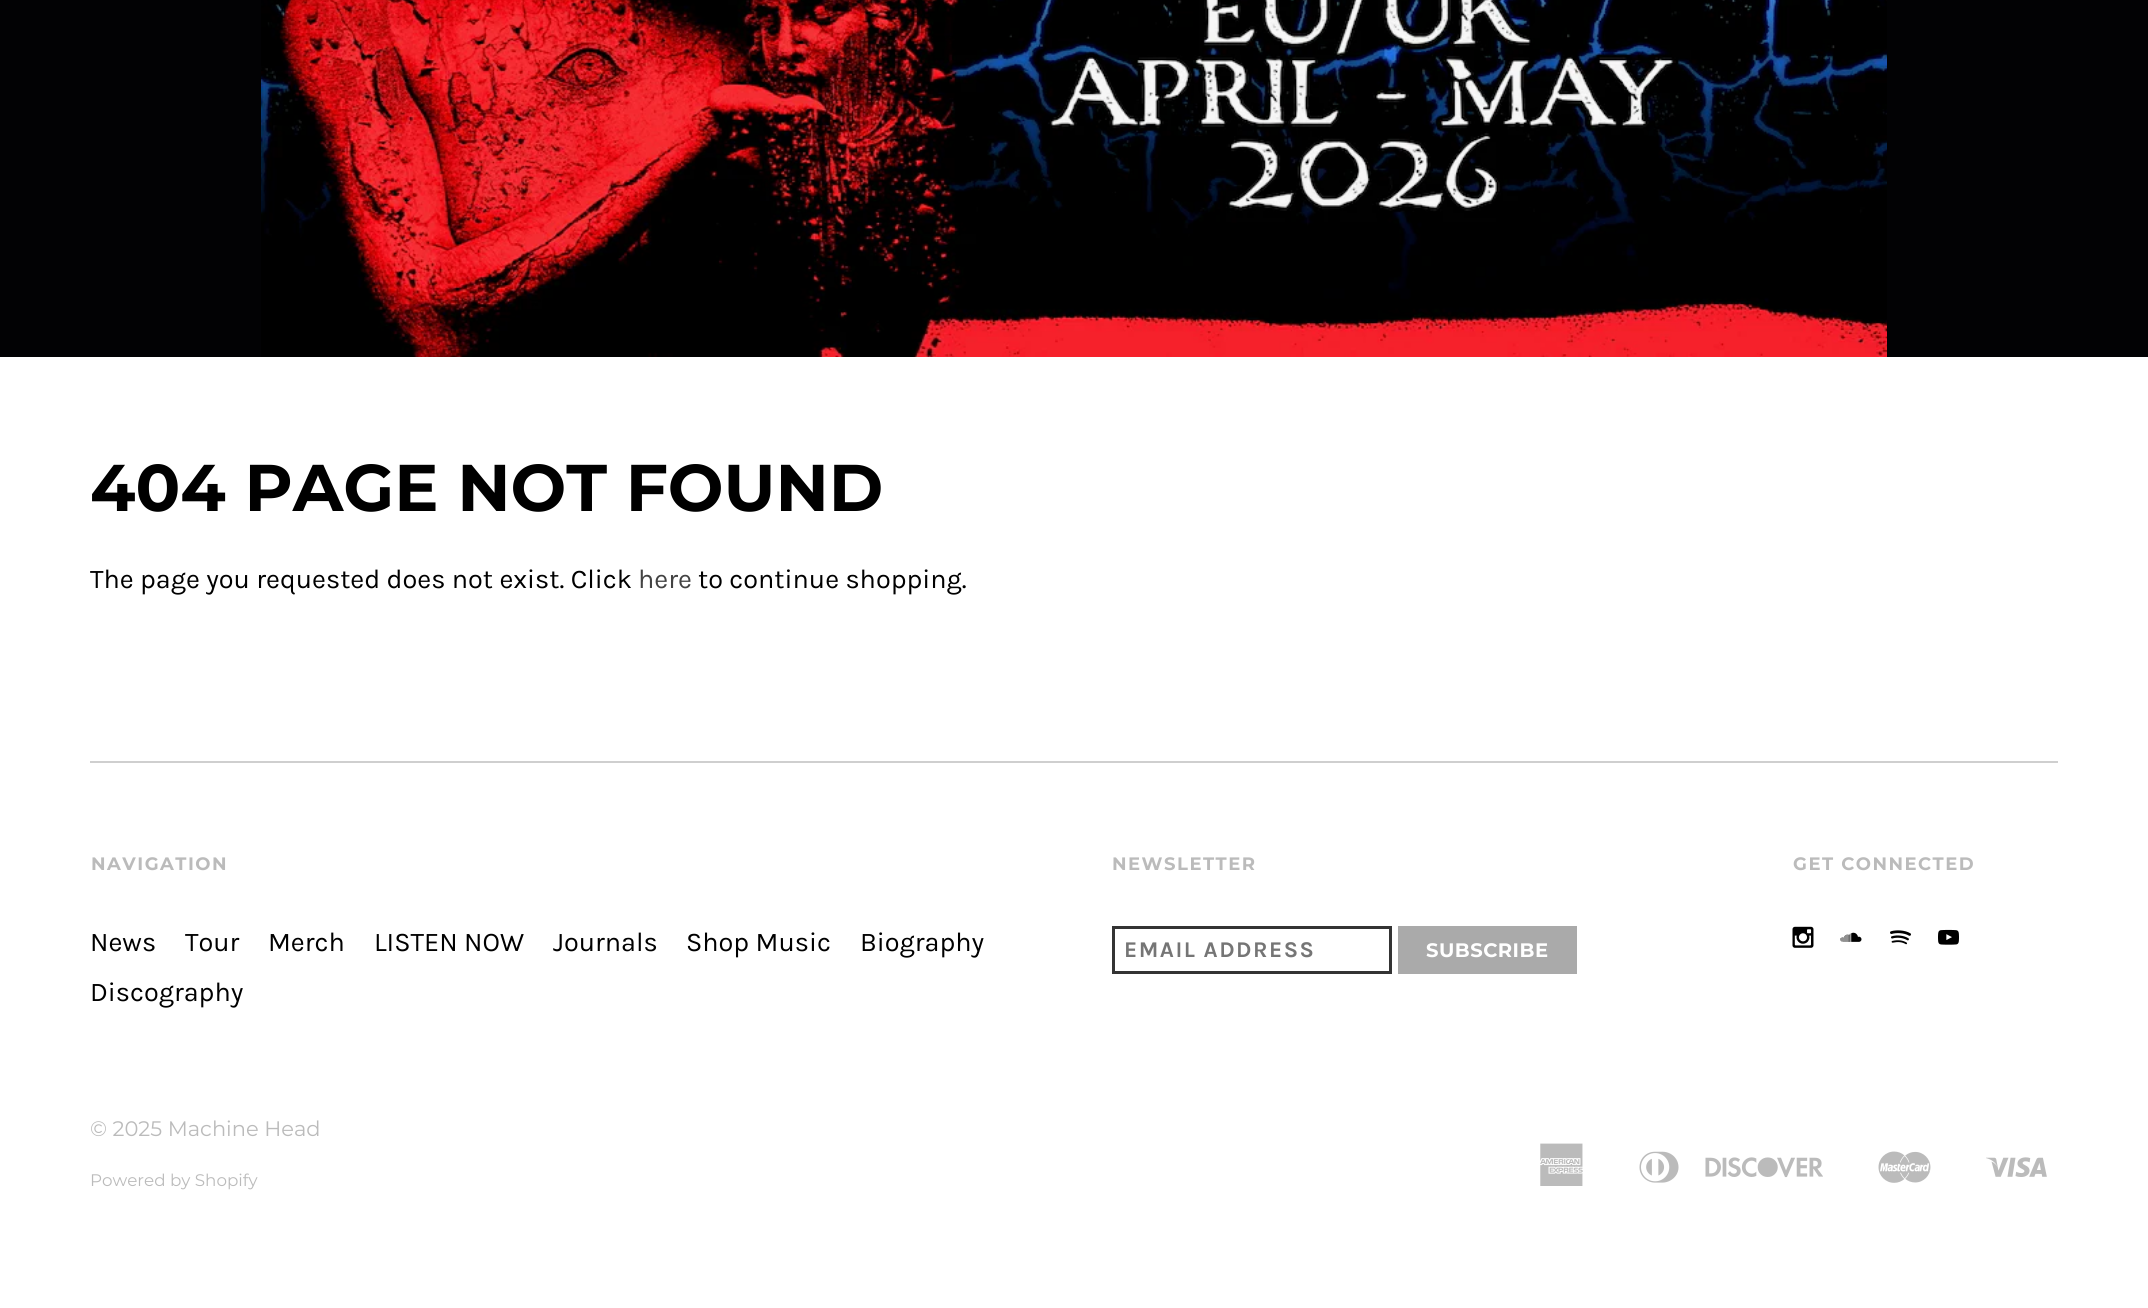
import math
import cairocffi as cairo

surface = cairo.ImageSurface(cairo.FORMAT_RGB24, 2148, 1308)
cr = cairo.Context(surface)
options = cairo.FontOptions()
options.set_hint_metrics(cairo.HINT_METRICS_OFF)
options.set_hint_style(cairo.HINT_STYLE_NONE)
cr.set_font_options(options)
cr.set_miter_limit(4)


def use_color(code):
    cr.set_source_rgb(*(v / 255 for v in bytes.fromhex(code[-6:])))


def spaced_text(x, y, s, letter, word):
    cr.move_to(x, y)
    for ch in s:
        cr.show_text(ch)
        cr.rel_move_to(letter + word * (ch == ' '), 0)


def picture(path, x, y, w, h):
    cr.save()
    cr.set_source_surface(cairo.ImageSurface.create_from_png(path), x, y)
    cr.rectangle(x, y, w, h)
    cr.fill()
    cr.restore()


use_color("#ffffff")
cr.paint()
use_color("#020204")
cr.rectangle(0, 0, 2148, 357)
cr.fill()
picture("img1.png", 261, 0, 1626, 357)
cr.select_font_face("Montserrat", cairo.FONT_SLANT_NORMAL, cairo.FONT_WEIGHT_BOLD)
cr.set_font_size(66)
use_color("#000000")
cr.move_to(90, 511)
cr.show_text("404 PAGE NOT FOUND")
cr.select_font_face("Karla")
cr.set_font_size(27)
cr.move_to(90, 588)
cr.show_text("The page you requested does not exist. Click")
use_color("#434343")
cr.move_to(638, 588)
cr.show_text("here")
use_color("#000000")
cr.move_to(698, 588)
cr.show_text("to continue shopping.")
use_color("#cfcfcf")
cr.rectangle(90, 761, 1968, 2)
cr.fill()
cr.select_font_face("Montserrat", cairo.FONT_SLANT_NORMAL, cairo.FONT_WEIGHT_BOLD)
cr.set_font_size(18)
use_color("#bbbbbb")
spaced_text(91, 870, "NAVIGATION", 1.5, 0)
cr.select_font_face("Karla")
cr.set_font_size(27)
use_color("#000000")
cr.move_to(90, 951)
cr.show_text("News")
cr.move_to(185, 951)
cr.show_text("Tour")
cr.move_to(268, 951)
cr.show_text("Merch")
cr.move_to(374, 951)
cr.show_text("LISTEN NOW")
cr.move_to(553, 951)
cr.show_text("Journals")
cr.move_to(686, 951)
cr.show_text("Shop Music")
cr.move_to(860, 951)
cr.show_text("Biography")
cr.move_to(90, 1001)
cr.show_text("Discography")
cr.select_font_face("Montserrat", cairo.FONT_SLANT_NORMAL, cairo.FONT_WEIGHT_BOLD)
cr.set_font_size(18)
use_color("#bbbbbb")
spaced_text(1112, 870, "NEWSLETTER", 1.5, 0)
cr.rectangle(1113.5, 927.5, 277, 45)
use_color("#343434")
cr.set_line_width(3)
cr.stroke()
cr.select_font_face("Karla", cairo.FONT_SLANT_NORMAL, cairo.FONT_WEIGHT_BOLD)
cr.set_font_size(22.5)
use_color("#757575")
spaced_text(1124, 957, "EMAIL ADDRESS", 1.5, 0)
use_color("#aaaaaa")
cr.rectangle(1398, 926, 179, 48)
cr.fill()
cr.select_font_face("Montserrat", cairo.FONT_SLANT_NORMAL, cairo.FONT_WEIGHT_BOLD)
cr.set_font_size(19.5)
use_color("#ffffff")
spaced_text(1426, 957, "SUBSCRIBE", 0.5, 0)
cr.set_font_size(18)
use_color("#bbbbbb")
spaced_text(1793, 870, "GET CONNECTED", 1.5, 0)
picture("img2.png", 1792, 926, 22, 22)
picture("img3.png", 1840, 932, 22, 10)
picture("img4.png", 1890, 930, 21, 15)
picture("img5.png", 1938, 929, 21, 16)
cr.select_font_face("Montserrat")
cr.set_font_size(21)
cr.move_to(90, 1136)
cr.show_text("© 2025 Machine Head")
cr.set_font_size(16.75)
cr.move_to(90, 1186)
cr.show_text("Powered by Shopify")
picture("img6.png", 1540, 1143, 43, 43)
picture("img7.png", 1639, 1151, 40, 32)
picture("img8.png", 1705, 1157, 118, 21)
picture("img9.png", 1878, 1151, 53, 32)
picture("img10.png", 1986, 1157, 61, 20)
surface.write_to_png("result.png")
